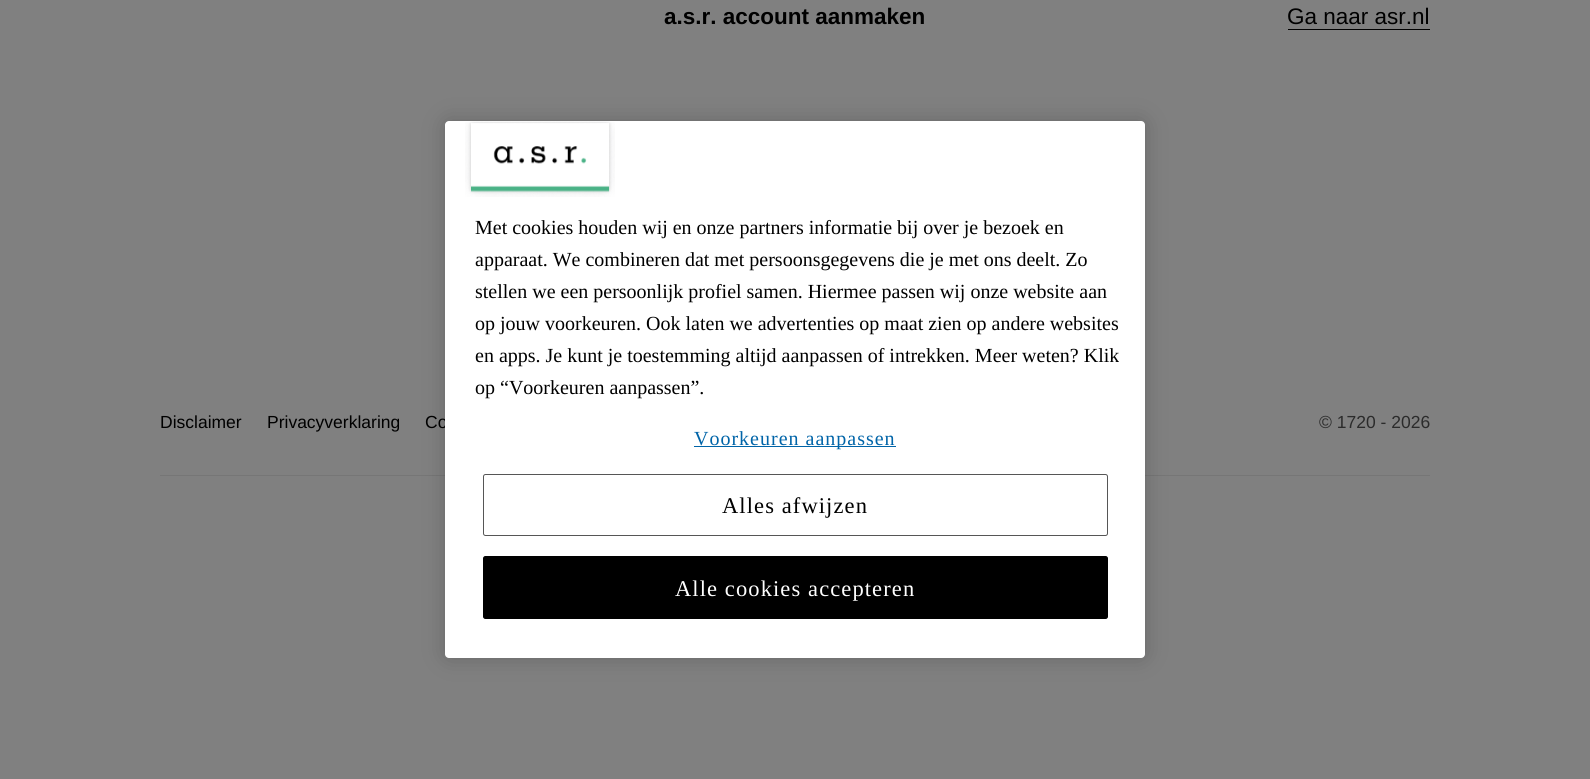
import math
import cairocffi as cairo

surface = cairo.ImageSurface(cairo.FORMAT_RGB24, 1590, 779)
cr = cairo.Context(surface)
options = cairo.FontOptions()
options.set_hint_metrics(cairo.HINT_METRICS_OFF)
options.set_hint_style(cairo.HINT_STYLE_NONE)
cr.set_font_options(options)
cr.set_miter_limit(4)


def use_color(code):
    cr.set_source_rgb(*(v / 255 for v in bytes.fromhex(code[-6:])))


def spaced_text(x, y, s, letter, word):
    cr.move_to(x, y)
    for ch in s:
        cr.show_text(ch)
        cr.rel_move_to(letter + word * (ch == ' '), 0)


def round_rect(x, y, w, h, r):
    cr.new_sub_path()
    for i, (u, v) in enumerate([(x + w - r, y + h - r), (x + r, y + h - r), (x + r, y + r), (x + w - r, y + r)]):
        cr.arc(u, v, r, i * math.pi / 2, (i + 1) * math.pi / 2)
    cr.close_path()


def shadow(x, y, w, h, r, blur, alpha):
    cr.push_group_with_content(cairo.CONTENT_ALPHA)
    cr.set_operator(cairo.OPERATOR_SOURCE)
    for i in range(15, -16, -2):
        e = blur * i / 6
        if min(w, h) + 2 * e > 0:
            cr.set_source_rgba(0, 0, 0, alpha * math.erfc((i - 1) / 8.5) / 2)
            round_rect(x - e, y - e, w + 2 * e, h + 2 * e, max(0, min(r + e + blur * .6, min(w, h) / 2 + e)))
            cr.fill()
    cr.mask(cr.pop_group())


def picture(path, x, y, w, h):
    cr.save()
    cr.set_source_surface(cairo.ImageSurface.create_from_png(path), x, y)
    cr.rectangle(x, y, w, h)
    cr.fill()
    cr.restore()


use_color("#808080")
cr.paint()
cr.select_font_face("Liberation Sans", cairo.FONT_SLANT_NORMAL, cairo.FONT_WEIGHT_BOLD)
cr.set_font_size(22.5)
use_color("#000000")
cr.move_to(664, 24)
cr.show_text("a.s.r. account aanmaken")
cr.select_font_face("Liberation Sans")
cr.move_to(1287, 24)
cr.show_text("Ga naar asr.nl")
cr.rectangle(1288, 29, 142, 1)
cr.fill()
cr.set_font_size(17.5)
cr.move_to(160, 428)
cr.show_text("Disclaimer")
cr.move_to(267, 428)
cr.show_text("Privacyverklaring")
cr.move_to(425, 428)
cr.show_text("Co")
use_color("#2b2b2b")
cr.move_to(1319, 428)
cr.show_text("© 1720 - 2026")
use_color("#767676")
cr.rectangle(160, 475, 1270, 1)
cr.fill()
use_color("#000000")
shadow(445, 121, 700, 537, 4, 11, 0.2)
use_color("#ffffff")
round_rect(445, 121, 700, 537, 4)
cr.fill()
picture("img1.png", 465, 121, 150, 76)
cr.select_font_face("Liberation Serif")
cr.set_font_size(20)
use_color("#000000")
cr.move_to(475, 234)
cr.show_text("Met cookies houden wij en onze partners informatie bij over je bezoek en")
cr.move_to(475, 266)
cr.show_text("apparaat. We combineren dat met persoonsgegevens die je met ons deelt. Zo")
cr.move_to(475, 298)
cr.show_text("stellen we een persoonlijk profiel samen. Hiermee passen wij onze website aan")
cr.move_to(475, 330)
cr.show_text("op jouw voorkeuren. Ook laten we advertenties op maat zien op andere websites")
cr.move_to(475, 362)
cr.show_text("en apps. Je kunt je toestemming altijd aanpassen of intrekken. Meer weten? Klik")
cr.move_to(475, 394)
cr.show_text("op “Voorkeuren aanpassen”.")
use_color("#0064a8")
cr.rectangle(694, 446, 202, 1)
cr.fill()
spaced_text(694, 445, "Voorkeuren aanpassen", 1, 0)
round_rect(483.5, 474.5, 624, 61, 2)
use_color("#565656")
cr.set_line_width(1)
cr.stroke()
cr.set_font_size(22.5)
use_color("#000000")
spaced_text(722, 513, "Alles afwijzen", 1.1, 0)
round_rect(483.5, 556.5, 624, 62, 2)
cr.fill_preserve()
cr.stroke()
use_color("#ffffff")
spaced_text(675, 596, "Alle cookies accepteren", 1.1, 0)
surface.write_to_png("result.png")
